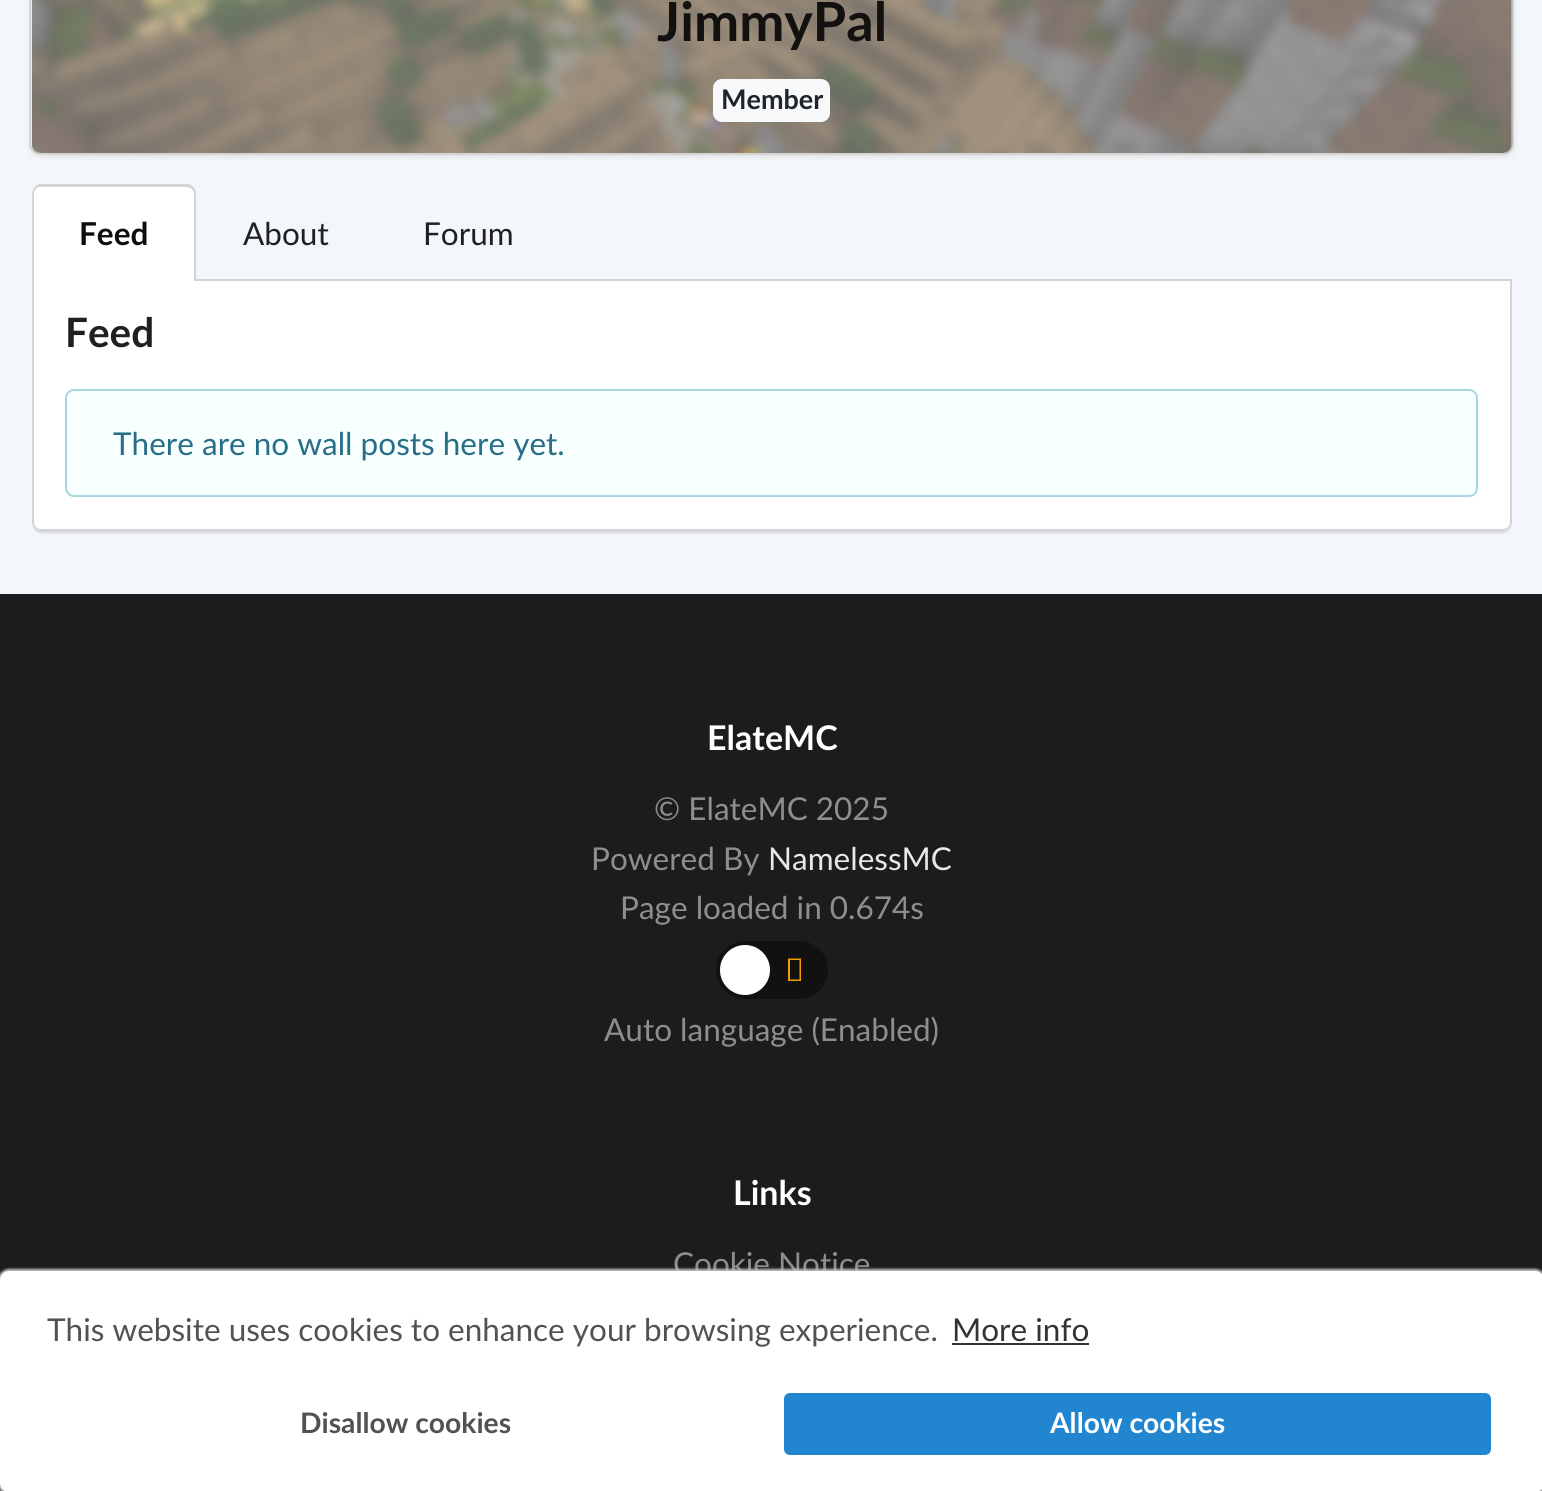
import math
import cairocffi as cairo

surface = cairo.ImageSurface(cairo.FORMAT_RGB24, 1542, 1491)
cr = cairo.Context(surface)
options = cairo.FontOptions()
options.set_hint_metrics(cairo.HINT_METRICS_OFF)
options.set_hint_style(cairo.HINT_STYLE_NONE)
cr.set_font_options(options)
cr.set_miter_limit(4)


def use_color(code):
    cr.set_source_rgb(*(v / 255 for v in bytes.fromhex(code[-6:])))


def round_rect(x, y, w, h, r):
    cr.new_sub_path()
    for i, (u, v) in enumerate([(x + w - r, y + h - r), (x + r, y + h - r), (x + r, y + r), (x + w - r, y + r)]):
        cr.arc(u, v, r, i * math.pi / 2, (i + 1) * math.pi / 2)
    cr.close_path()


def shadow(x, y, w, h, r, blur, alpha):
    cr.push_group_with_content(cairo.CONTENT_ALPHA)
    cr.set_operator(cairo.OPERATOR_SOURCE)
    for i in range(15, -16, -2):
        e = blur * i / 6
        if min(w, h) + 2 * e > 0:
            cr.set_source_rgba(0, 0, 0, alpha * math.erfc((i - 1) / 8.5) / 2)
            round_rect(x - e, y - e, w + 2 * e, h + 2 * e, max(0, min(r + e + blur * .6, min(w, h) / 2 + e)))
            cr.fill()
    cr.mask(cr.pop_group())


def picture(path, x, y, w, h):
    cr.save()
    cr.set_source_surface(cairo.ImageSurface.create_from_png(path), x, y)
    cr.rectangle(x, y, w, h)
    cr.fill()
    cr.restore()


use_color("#f3f6fa")
cr.paint()
round_rect(30, -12, 1483, 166, 10)
use_color("#d4d4d5")
cr.stroke()
use_color("#d4d4d5")
shadow(32, -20, 1480, 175, 9, 3.5, 1)
use_color("#ffffff")
round_rect(32, -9, 1480, 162, 9)
cr.fill()
picture("img1.png", 32, 0, 1481, 153)
cr.select_font_face("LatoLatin", cairo.FONT_SLANT_NORMAL, cairo.FONT_WEIGHT_BOLD)
cr.set_font_size(54)
use_color("#13110f")
cr.move_to(657, 41)
cr.show_text("JimmyPal")
use_color("#f8f9fa")
round_rect(713, 79, 117, 43, 9)
cr.fill()
cr.set_font_size(27)
use_color("#212529")
cr.move_to(721, 109)
cr.show_text("Member")
use_color("#d4d4d5")
cr.rectangle(196, 279, 1316, 2)
cr.fill()
use_color("#ffffff")
cr.new_path()
cr.move_to(41, 185)
cr.line_to(187, 185)
cr.curve_to(192, 185, 196, 189, 196, 194)
cr.line_to(196, 281)
cr.line_to(32, 281)
cr.line_to(32, 194)
cr.curve_to(32, 189, 36, 185, 41, 185)
cr.close_path()
cr.fill()
use_color("#d4d4d5")
cr.set_fill_rule(cairo.FILL_RULE_EVEN_ODD)
cr.new_path()
cr.move_to(40, 184)
cr.line_to(187, 184)
cr.curve_to(192, 184, 196, 189, 196, 194)
cr.line_to(196, 281)
cr.line_to(32, 281)
cr.line_to(32, 194)
cr.curve_to(32, 189, 36, 184, 40, 184)
cr.close_path()
cr.move_to(40, 187)
cr.line_to(187, 187)
cr.curve_to(190, 187, 194, 190, 194, 194)
cr.line_to(194, 281)
cr.line_to(34, 281)
cr.line_to(34, 194)
cr.curve_to(34, 190, 37, 187, 40, 187)
cr.close_path()
cr.fill()
cr.set_font_size(31.5)
use_color("#0d0d0d")
cr.move_to(79, 245)
cr.show_text("Feed")
cr.select_font_face("LatoLatin")
use_color("#202021")
cr.move_to(243, 245)
cr.show_text("About")
cr.move_to(423, 245)
cr.show_text("Forum")
use_color("#222426")
shadow(34, 288, 1476, 245, 7, 1, 0.15)
use_color("#ffffff")
cr.new_path()
cr.move_to(32, 281)
cr.line_to(1512, 281)
cr.line_to(1512, 522)
cr.curve_to(1512, 527, 1508, 531, 1503, 531)
cr.line_to(41, 531)
cr.curve_to(36, 531, 32, 527, 32, 522)
cr.close_path()
cr.fill()
use_color("#d4d4d5")
cr.new_path()
cr.move_to(32, 281)
cr.line_to(1512, 281)
cr.line_to(1512, 522)
cr.curve_to(1512, 527, 1508, 531, 1503, 531)
cr.line_to(40, 531)
cr.curve_to(36, 531, 32, 527, 32, 522)
cr.close_path()
cr.move_to(34, 281)
cr.line_to(1510, 281)
cr.line_to(1510, 522)
cr.curve_to(1510, 526, 1507, 529, 1503, 529)
cr.line_to(40, 529)
cr.curve_to(37, 529, 34, 526, 34, 522)
cr.close_path()
cr.fill()
cr.select_font_face("LatoLatin", cairo.FONT_SLANT_NORMAL, cairo.FONT_WEIGHT_BOLD)
cr.set_font_size(40.5)
use_color("#202021")
cr.move_to(65, 347)
cr.show_text("Feed")
use_color("#f8ffff")
round_rect(66, 390, 1411, 106, 8)
cr.fill_preserve()
use_color("#a9d5de")
cr.stroke()
cr.select_font_face("LatoLatin")
cr.set_font_size(31.5)
use_color("#276f86")
cr.move_to(113, 455)
cr.show_text("There are no wall posts here yet.")
use_color("#1b1c1d")
cr.rectangle(0, 594, 1542, 897)
cr.fill()
cr.select_font_face("LatoLatin", cairo.FONT_SLANT_NORMAL, cairo.FONT_WEIGHT_BOLD)
cr.set_font_size(34)
use_color("#ffffff")
cr.move_to(707, 750)
cr.show_text("ElateMC")
cr.select_font_face("LatoLatin")
cr.set_font_size(31.5)
use_color("#8d8e8e")
cr.move_to(654, 820)
cr.show_text("© ElateMC 2025")
cr.move_to(591, 870)
cr.show_text("Powered By")
use_color("#e8e8e8")
cr.move_to(768, 870)
cr.show_text("NamelessMC")
use_color("#8d8e8e")
cr.move_to(620, 919)
cr.show_text("Page loaded in 0.674s")
use_color("#111111")
round_rect(716, 941, 112, 58, 29)
cr.fill()
use_color("#ffffff")
cr.arc(745, 970, 25, 0, 2 * math.pi)
cr.fill()
use_color("#f39c00")
cr.set_fill_rule(cairo.FILL_RULE_WINDING)
cr.new_path()
cr.move_to(788, 981)
cr.line_to(788, 958.5)
cr.line_to(801, 958.5)
cr.line_to(801, 981)
cr.close_path()
cr.move_to(790, 979.5)
cr.line_to(799.5, 979.5)
cr.line_to(799.5, 960)
cr.line_to(790, 960)
cr.close_path()
cr.fill()
use_color("#8d8e8e")
cr.move_to(604, 1041)
cr.show_text("Auto language (Enabled)")
cr.select_font_face("LatoLatin", cairo.FONT_SLANT_NORMAL, cairo.FONT_WEIGHT_BOLD)
cr.set_font_size(34)
use_color("#ffffff")
cr.move_to(733, 1205)
cr.show_text("Links")
cr.select_font_face("LatoLatin")
cr.set_font_size(31.5)
use_color("#8d8e8e")
cr.move_to(673, 1275)
cr.show_text("Cookie Notice")
use_color("#bababb")
shadow(-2, 1269, 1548, 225, 11, 1, 1)
shadow(0, 1274, 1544, 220, 9, 3.5, 1)
use_color("#ffffff")
round_rect(0, 1271, 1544, 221, 9)
cr.fill()
use_color("#525252")
cr.move_to(47, 1341)
cr.show_text("This website uses cookies to enhance your browsing experience.")
use_color("#333333")
cr.move_to(952, 1341)
cr.show_text("More info")
cr.rectangle(952, 1343, 137, 2)
cr.fill()
cr.select_font_face("LatoLatin", cairo.FONT_SLANT_NORMAL, cairo.FONT_WEIGHT_BOLD)
cr.set_font_size(28.25)
use_color("#525252")
cr.move_to(300, 1433)
cr.show_text("Disallow cookies")
use_color("#2185d0")
round_rect(781.5, 1390.5, 712, 67, 8.5)
cr.fill_preserve()
use_color("#ffffff")
cr.set_line_width(5)
cr.stroke()
cr.move_to(1050, 1433)
cr.show_text("Allow cookies")
surface.write_to_png("result.png")
